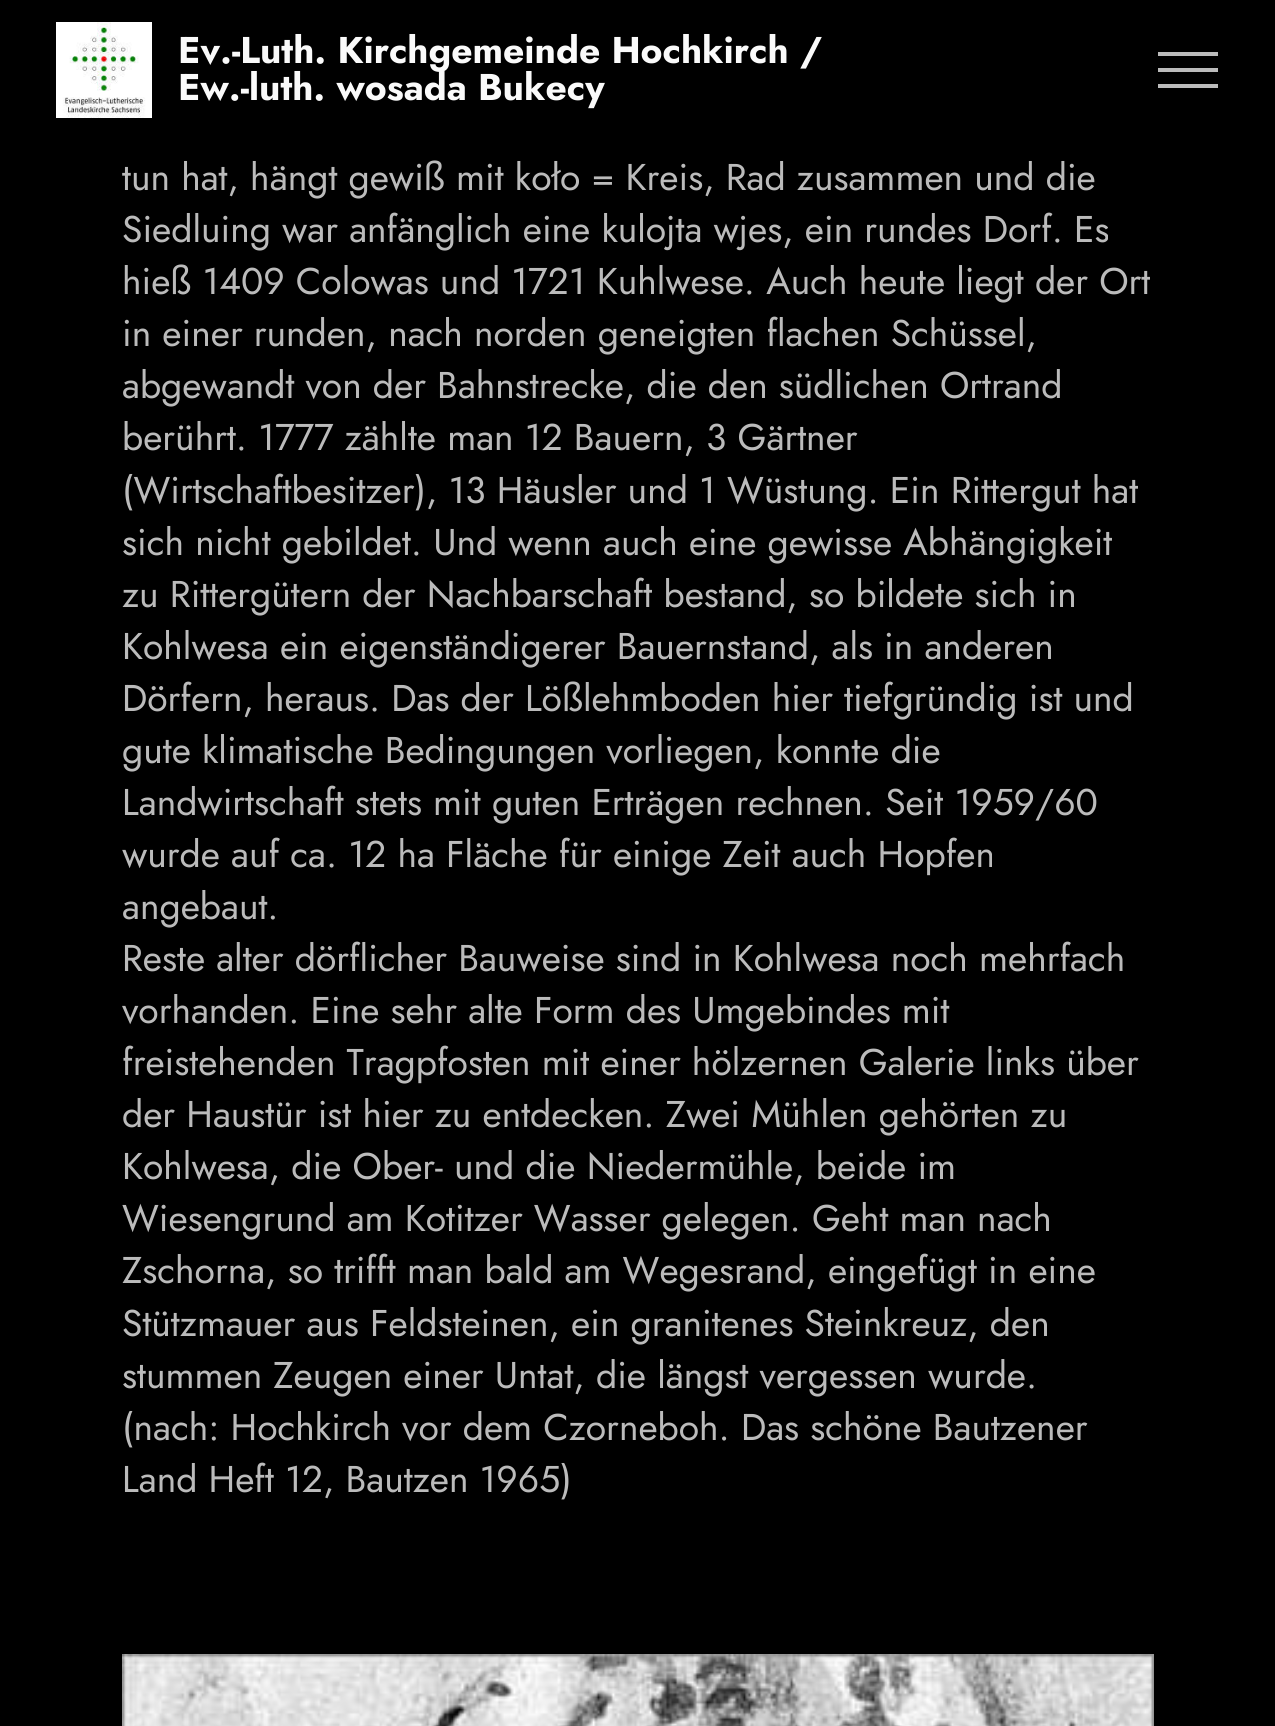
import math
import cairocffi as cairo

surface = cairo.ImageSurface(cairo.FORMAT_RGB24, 1275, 1726)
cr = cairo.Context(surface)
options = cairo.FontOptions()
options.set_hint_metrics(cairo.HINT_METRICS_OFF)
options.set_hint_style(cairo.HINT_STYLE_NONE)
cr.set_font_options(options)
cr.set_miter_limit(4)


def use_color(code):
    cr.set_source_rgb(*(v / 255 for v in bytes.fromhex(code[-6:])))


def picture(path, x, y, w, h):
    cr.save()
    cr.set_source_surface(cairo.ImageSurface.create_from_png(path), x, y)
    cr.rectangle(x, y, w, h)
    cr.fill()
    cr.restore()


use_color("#000000")
cr.paint()
picture("img1.png", 56, 22, 96, 96)
cr.select_font_face("Jost", cairo.FONT_SLANT_NORMAL, cairo.FONT_WEIGHT_BOLD)
cr.set_font_size(37.2)
use_color("#fafafa")
cr.move_to(178, 63)
cr.show_text("Ev.-Luth. Kirchgemeinde Hochkirch /")
cr.move_to(178, 100)
cr.show_text("Ew.-luth. wosada Bukecy")
use_color("#bbbbbb")
cr.rectangle(1158, 52, 60, 4)
cr.fill()
cr.rectangle(1158, 68, 60, 4)
cr.fill()
cr.rectangle(1158, 84, 60, 4)
cr.fill()
cr.select_font_face("Jost")
cr.move_to(122, 190)
cr.show_text("tun hat, hängt gewiß mit koło = Kreis, Rad zusammen und die")
cr.move_to(122, 242)
cr.show_text("Siedluing war anfänglich eine kulojta wjes, ein rundes Dorf. Es")
cr.move_to(122, 294)
cr.show_text("hieß 1409 Colowas und 1721 Kuhlwese. Auch heute liegt der Ort")
cr.move_to(122, 346)
cr.show_text("in einer runden, nach norden geneigten flachen Schüssel,")
cr.move_to(122, 398)
cr.show_text("abgewandt von der Bahnstrecke, die den südlichen Ortrand")
cr.move_to(122, 450)
cr.show_text("berührt. 1777 zählte man 12 Bauern, 3 Gärtner")
cr.move_to(122, 503)
cr.show_text("(Wirtschaftbesitzer), 13 Häusler und 1 Wüstung. Ein Rittergut hat")
cr.move_to(122, 555)
cr.show_text("sich nicht gebildet. Und wenn auch eine gewisse Abhängigkeit")
cr.move_to(122, 607)
cr.show_text("zu Rittergütern der Nachbarschaft bestand, so bildete sich in")
cr.move_to(122, 659)
cr.show_text("Kohlwesa ein eigenständigerer Bauernstand, als in anderen")
cr.move_to(122, 711)
cr.show_text("Dörfern, heraus. Das der Lößlehmboden hier tiefgründig ist und")
cr.move_to(122, 763)
cr.show_text("gute klimatische Bedingungen vorliegen, konnte die")
cr.move_to(122, 815)
cr.show_text("Landwirtschaft stets mit guten Erträgen rechnen. Seit 1959/60")
cr.move_to(122, 867)
cr.show_text("wurde auf ca. 12 ha Fläche für einige Zeit auch Hopfen")
cr.move_to(122, 919)
cr.show_text("angebaut.")
cr.move_to(122, 971)
cr.show_text("Reste alter dörflicher Bauweise sind in Kohlwesa noch mehrfach")
cr.move_to(122, 1023)
cr.show_text("vorhanden. Eine sehr alte Form des Umgebindes mit")
cr.move_to(122, 1075)
cr.show_text("freistehenden Tragpfosten mit einer hölzernen Galerie links über")
cr.move_to(122, 1127)
cr.show_text("der Haustür ist hier zu entdecken. Zwei Mühlen gehörten zu")
cr.move_to(122, 1179)
cr.show_text("Kohlwesa, die Ober- und die Niedermühle, beide im")
cr.move_to(122, 1231)
cr.show_text("Wiesengrund am Kotitzer Wasser gelegen. Geht man nach")
cr.move_to(122, 1283)
cr.show_text("Zschorna, so trifft man bald am Wegesrand, eingefügt in eine")
cr.move_to(122, 1336)
cr.show_text("Stützmauer aus Feldsteinen, ein granitenes Steinkreuz, den")
cr.move_to(122, 1388)
cr.show_text("stummen Zeugen einer Untat, die längst vergessen wurde.")
cr.move_to(122, 1440)
cr.show_text("(nach: Hochkirch vor dem Czorneboh. Das schöne Bautzener")
cr.move_to(122, 1492)
cr.show_text("Land Heft 12, Bautzen 1965)")
picture("img2.png", 122, 1654, 1032, 72)
surface.write_to_png("result.png")
